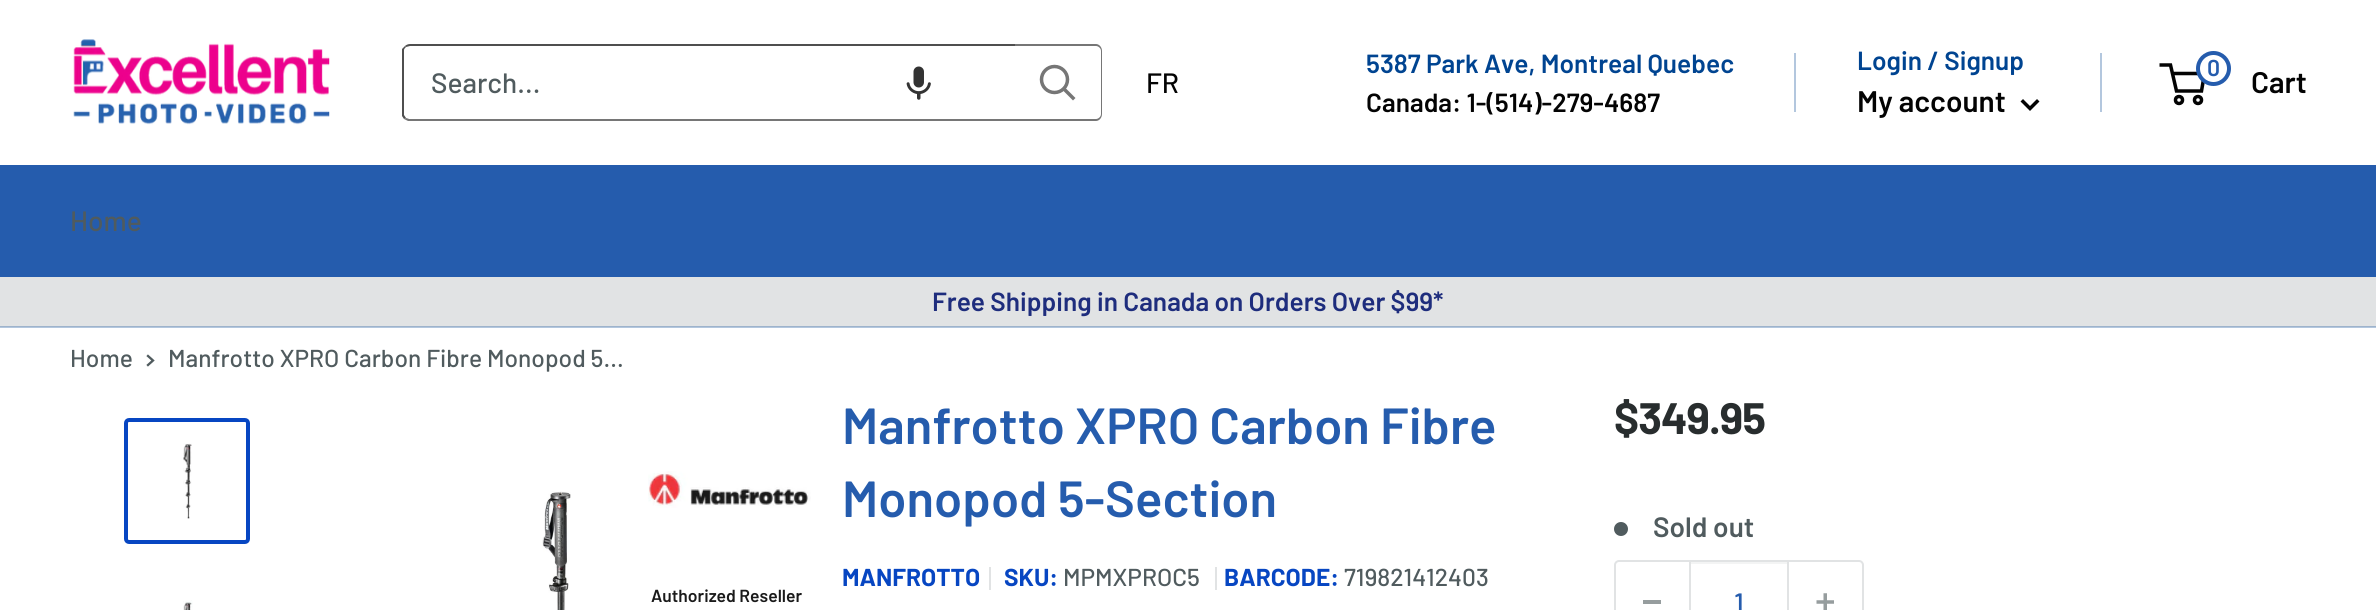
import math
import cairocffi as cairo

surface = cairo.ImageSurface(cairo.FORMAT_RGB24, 2376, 610)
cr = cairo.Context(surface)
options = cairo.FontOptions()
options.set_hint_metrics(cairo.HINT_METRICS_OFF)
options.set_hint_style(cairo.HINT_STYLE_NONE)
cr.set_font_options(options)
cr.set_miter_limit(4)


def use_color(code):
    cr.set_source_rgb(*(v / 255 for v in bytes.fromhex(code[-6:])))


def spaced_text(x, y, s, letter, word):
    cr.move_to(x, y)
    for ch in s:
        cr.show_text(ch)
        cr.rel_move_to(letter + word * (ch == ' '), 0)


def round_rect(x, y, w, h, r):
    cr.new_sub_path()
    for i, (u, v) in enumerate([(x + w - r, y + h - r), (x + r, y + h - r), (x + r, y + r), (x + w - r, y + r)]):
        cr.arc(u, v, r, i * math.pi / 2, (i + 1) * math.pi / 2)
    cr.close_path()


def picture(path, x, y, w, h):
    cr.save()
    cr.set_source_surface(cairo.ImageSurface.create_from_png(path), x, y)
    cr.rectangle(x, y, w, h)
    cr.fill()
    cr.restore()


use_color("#ffffff")
cr.paint()
use_color("#b3c7de")
cr.rectangle(0, 327, 2376, 1)
cr.fill()
picture("img1.png", 73, 39, 257, 86)
use_color("#4f4f4f")
cr.new_path()
cr.move_to(410, 44)
cr.line_to(1015, 44)
cr.line_to(1015, 46)
cr.line_to(410, 46)
cr.line_to(406, 47)
cr.line_to(405, 46)
cr.curve_to(406, 45, 408, 44, 410, 44)
cr.close_path()
cr.fill()
use_color("#767676")
cr.new_path()
cr.move_to(1015, 121)
cr.line_to(408, 121)
cr.line_to(404, 119)
cr.line_to(406, 118)
cr.line_to(409, 119)
cr.line_to(1015, 119)
cr.close_path()
cr.fill()
use_color("#4f4f4f")
cr.new_path()
cr.move_to(406, 118)
cr.line_to(404, 119)
cr.line_to(402, 116)
cr.line_to(402, 49)
cr.line_to(405, 46)
cr.line_to(406, 47)
cr.curve_to(405, 48, 404, 49, 404, 50)
cr.line_to(404, 115)
cr.close_path()
cr.fill()
cr.select_font_face("Barlow Medium")
cr.set_font_size(28)
use_color("#505b5e")
cr.move_to(431, 93)
cr.show_text("Search...")
picture("img2.png", 906, 66, 25, 34)
use_color("#767676")
cr.set_fill_rule(cairo.FILL_RULE_EVEN_ODD)
cr.new_path()
cr.move_to(1015, 44)
cr.line_to(1096, 44)
cr.curve_to(1099, 44, 1102, 47, 1102, 51)
cr.line_to(1102, 114)
cr.curve_to(1102, 118, 1099, 121, 1096, 121)
cr.line_to(1015, 121)
cr.close_path()
cr.move_to(1015, 46)
cr.line_to(1096, 46)
cr.curve_to(1098, 46, 1101, 48, 1101, 51)
cr.line_to(1101, 114)
cr.curve_to(1101, 117, 1098, 119, 1096, 119)
cr.line_to(1015, 119)
cr.close_path()
cr.fill()
cr.new_path()
cr.move_to(1073, 98)
cr.line_to(1064, 89)
cr.set_line_width(3.5)
cr.set_line_cap(cairo.LINE_CAP_SQUARE)
cr.stroke()
cr.arc(1054.5, 79.5, 13, 0, 2 * math.pi)
cr.set_line_cap(cairo.LINE_CAP_BUTT)
cr.stroke()
use_color("#030303")
cr.move_to(1146, 93)
cr.show_text("FR")
cr.select_font_face("Barlow SemiBold")
cr.set_font_size(26.25)
use_color("#004491")
cr.move_to(1366, 73)
cr.show_text("5387 Park Ave, Montreal Quebec")
use_color("#030303")
cr.move_to(1366, 112)
cr.show_text("Canada: 1-(514)-279-4687")
use_color("#b3c7de")
cr.rectangle(1794, 53, 2, 59)
cr.fill()
use_color("#004491")
cr.move_to(1857, 70)
cr.show_text("Login / Signup")
use_color("#b3c7de")
cr.rectangle(2100, 53, 2, 59)
cr.fill()
cr.set_font_size(29.75)
use_color("#030303")
cr.move_to(1857, 112)
cr.show_text("My account")
cr.new_path()
cr.move_to(2037, 101.5)
cr.line_to(2030, 108.5)
cr.line_to(2023, 101.5)
cr.set_line_cap(cairo.LINE_CAP_SQUARE)
cr.stroke()
cr.arc(2179, 100, 3.5, 0, 2 * math.pi)
cr.set_line_cap(cairo.LINE_CAP_BUTT)
cr.stroke()
cr.arc(2198, 100, 3.5, 0, 2 * math.pi)
cr.stroke()
cr.new_path()
cr.move_to(2172.5, 73.5)
cr.line_to(2204.5, 73.5)
cr.line_to(2201.5, 91)
cr.line_to(2176.5, 91)
cr.line_to(2170.5, 65)
cr.line_to(2159.5, 65)
cr.stroke()
use_color("#ffffff")
cr.arc(2213.5, 68.5, 15.5, 0, 2 * math.pi)
cr.fill_preserve()
use_color("#255cad")
cr.set_line_width(4)
cr.stroke()
cr.set_font_size(23)
cr.move_to(2207, 76)
cr.show_text("0")
cr.set_font_size(29.75)
use_color("#030303")
cr.move_to(2251, 93)
cr.show_text("Cart")
use_color("#255cad")
cr.rectangle(0, 165, 2376, 112)
cr.fill()
cr.select_font_face("Barlow Medium")
cr.set_font_size(28)
use_color("#505b5e")
cr.move_to(70, 231)
cr.show_text("Home")
use_color("#e1e3e4")
cr.rectangle(0, 277, 2376, 49)
cr.fill()
use_color("#9eb3cb")
cr.rectangle(0, 326, 2376, 1)
cr.fill()
cr.select_font_face("Barlow SemiBold")
cr.set_font_size(26.25)
use_color("#1e2d7d")
cr.move_to(932, 311)
cr.show_text("Free Shipping in Canada on Orders Over $99*")
cr.select_font_face("Barlow Medium")
cr.set_font_size(24.5)
use_color("#505b5e")
cr.move_to(70, 367)
cr.show_text("Home")
cr.new_path()
cr.move_to(148, 356)
cr.line_to(153, 360.5)
cr.line_to(148, 365)
cr.set_line_width(2.3)
cr.set_line_cap(cairo.LINE_CAP_SQUARE)
cr.stroke()
cr.move_to(168, 367)
cr.show_text("Manfrotto XPRO Carbon Fibre Monopod 5...")
cr.select_font_face("Barlow SemiBold")
cr.set_font_size(50.75)
use_color("#255cad")
cr.move_to(842, 444)
cr.show_text("Manfrotto XPRO Carbon Fibre")
cr.move_to(842, 517)
cr.show_text("Monopod 5-Section")
cr.select_font_face("Barlow", cairo.FONT_SLANT_NORMAL, cairo.FONT_WEIGHT_BOLD)
cr.set_font_size(24.5)
use_color("#0746c2")
cr.move_to(842, 586)
cr.show_text("MANFROTTO")
use_color("#e1e3e4")
cr.rectangle(989, 567, 2, 23)
cr.fill()
use_color("#0746c2")
cr.move_to(1004, 586)
cr.show_text("SKU:")
cr.select_font_face("Barlow Medium")
use_color("#505b5e")
cr.move_to(1063, 586)
cr.show_text("MPMXPROC5")
use_color("#e1e3e4")
cr.rectangle(1215, 567, 2, 23)
cr.fill()
cr.select_font_face("Barlow", cairo.FONT_SLANT_NORMAL, cairo.FONT_WEIGHT_BOLD)
use_color("#0746c2")
cr.move_to(1224, 586)
cr.show_text("BARCODE:")
cr.select_font_face("Barlow Medium")
use_color("#505b5e")
cr.move_to(1344, 586)
cr.show_text("719821412403")
cr.select_font_face("Barlow", cairo.FONT_SLANT_NORMAL, cairo.FONT_WEIGHT_BOLD)
cr.set_font_size(44)
use_color("#282d2e")
spaced_text(1614, 434, "$349.95", -1, 0)
use_color("#505b5e")
cr.new_path()
cr.arc(1621, 529, 7, 0, 2 * math.pi)
cr.fill()
cr.select_font_face("Barlow SemiBold")
cr.set_font_size(28)
cr.move_to(1653, 537)
cr.show_text("Sold out")
round_rect(1615, 561, 248, 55, 4)
use_color("#e1e3e4")
cr.set_line_width(2)
cr.set_line_cap(cairo.LINE_CAP_BUTT)
cr.stroke()
use_color("#969d9e")
cr.rectangle(1643, 600, 18, 4)
cr.fill()
use_color("#f3f4f4")
cr.rectangle(1691, 562, 96, 2)
cr.fill()
use_color("#e1e3e4")
cr.rectangle(1787, 562, 2, 48)
cr.fill()
cr.rectangle(1689, 562, 2, 48)
cr.fill()
cr.select_font_face("Barlow Medium")
use_color("#255cad")
cr.move_to(1734, 613)
cr.show_text("1")
picture("img3.png", 1816, 593, 18, 17)
round_rect(126, 420, 122, 122, 3)
use_color("#0746c2")
cr.set_line_width(4)
cr.stroke()
picture("img4.png", 183, 443, 9, 76)
picture("img5.png", 183, 600, 10, 10)
picture("img6.png", 542, 491, 29, 119)
picture("img7.png", 648, 471, 163, 37)
cr.select_font_face("Barlow SemiBold")
cr.set_font_size(17.5)
use_color("#1a1a1a")
cr.move_to(651, 602)
cr.show_text("Authorized Reseller")
surface.write_to_png("result.png")
